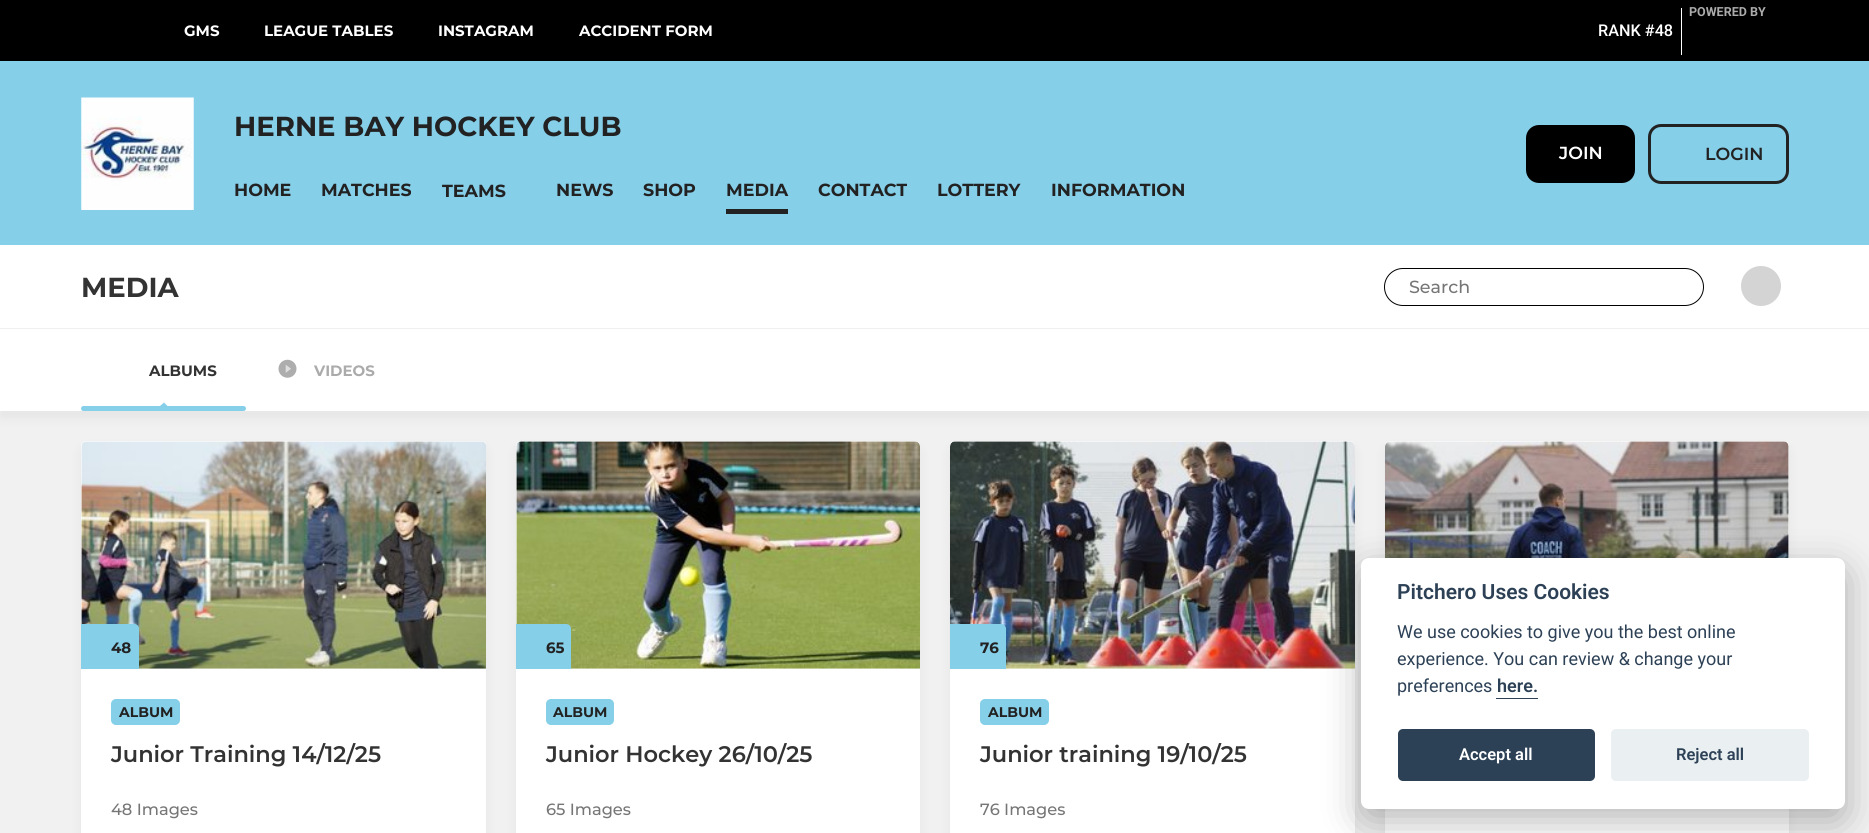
import math
import cairocffi as cairo

surface = cairo.ImageSurface(cairo.FORMAT_RGB24, 1869, 833)
cr = cairo.Context(surface)
options = cairo.FontOptions()
options.set_hint_metrics(cairo.HINT_METRICS_OFF)
options.set_hint_style(cairo.HINT_STYLE_NONE)
cr.set_font_options(options)
cr.set_miter_limit(4)


def use_color(code):
    cr.set_source_rgb(*(v / 255 for v in bytes.fromhex(code[-6:])))


def round_rect(x, y, w, h, r):
    cr.new_sub_path()
    for i, (u, v) in enumerate([(x + w - r, y + h - r), (x + r, y + h - r), (x + r, y + r), (x + w - r, y + r)]):
        cr.arc(u, v, r, i * math.pi / 2, (i + 1) * math.pi / 2)
    cr.close_path()


def shadow(x, y, w, h, r, blur, alpha):
    cr.push_group_with_content(cairo.CONTENT_ALPHA)
    cr.set_operator(cairo.OPERATOR_SOURCE)
    for i in range(15, -16, -2):
        e = blur * i / 6
        if min(w, h) + 2 * e > 0:
            cr.set_source_rgba(0, 0, 0, alpha * math.erfc((i - 1) / 8.5) / 2)
            round_rect(x - e, y - e, w + 2 * e, h + 2 * e, max(0, min(r + e + blur * .6, min(w, h) / 2 + e)))
            cr.fill()
    cr.mask(cr.pop_group())


def picture(path, x, y, w, h):
    cr.save()
    cr.set_source_surface(cairo.ImageSurface.create_from_png(path), x, y)
    cr.rectangle(x, y, w, h)
    cr.fill()
    cr.restore()


use_color("#f1f1f1")
cr.paint()
use_color("#86cfe9")
cr.rectangle(0, 61, 1869, 184)
cr.fill()
use_color("#000000")
cr.rectangle(0, 0, 1869, 61)
cr.fill()
cr.select_font_face("Montserrat", cairo.FONT_SLANT_NORMAL, cairo.FONT_WEIGHT_BOLD)
cr.set_font_size(15)
use_color("#ffffff")
cr.move_to(184, 36)
cr.show_text("GMS")
cr.move_to(264, 36)
cr.show_text("LEAGUE TABLES")
cr.move_to(438, 36)
cr.show_text("INSTAGRAM")
cr.move_to(579, 36)
cr.show_text("ACCIDENT FORM")
cr.select_font_face("Roboto Medium")
cr.set_font_size(16.25)
cr.move_to(1598, 36)
cr.show_text("RANK #48")
cr.rectangle(1681, 8, 1, 47)
cr.fill()
cr.select_font_face("Roboto", cairo.FONT_SLANT_NORMAL, cairo.FONT_WEIGHT_BOLD)
cr.set_font_size(12.5)
use_color("#ababab")
cr.move_to(1689, 16)
cr.show_text("POWERED BY")
picture("img1.png", 81, 97, 113, 113)
cr.select_font_face("Montserrat", cairo.FONT_SLANT_NORMAL, cairo.FONT_WEIGHT_BOLD)
cr.set_font_size(27.5)
use_color("#222222")
cr.move_to(234, 136)
cr.show_text("HERNE BAY HOCKEY CLUB")
cr.set_font_size(17.5)
cr.move_to(234, 196)
cr.show_text("HOME")
cr.move_to(321, 196)
cr.show_text("MATCHES")
cr.move_to(442, 197)
cr.show_text("TEAMS")
cr.move_to(556, 196)
cr.show_text("NEWS")
cr.move_to(643, 196)
cr.show_text("SHOP")
cr.move_to(726, 196)
cr.show_text("MEDIA")
cr.rectangle(726, 209, 62, 5)
cr.fill()
cr.move_to(818, 196)
cr.show_text("CONTACT")
cr.move_to(937, 196)
cr.show_text("LOTTERY")
cr.move_to(1051, 196)
cr.show_text("INFORMATION")
use_color("#000000")
round_rect(1527.5, 126.5, 106, 55, 11.5)
cr.fill_preserve()
cr.set_line_width(3)
cr.stroke()
cr.select_font_face("Montserrat SemiBold")
use_color("#ffffff")
cr.move_to(1559, 159)
cr.show_text("JOIN")
round_rect(1649.5, 125.5, 138, 57, 11.5)
use_color("#222222")
cr.stroke()
cr.move_to(1705, 160)
cr.show_text("LOGIN")
use_color("#000000")
shadow(0, 334, 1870, 84, 0, 6, 0.05)
use_color("#ffffff")
cr.rectangle(0, 245, 1869, 83)
cr.fill()
cr.select_font_face("Montserrat", cairo.FONT_SLANT_NORMAL, cairo.FONT_WEIGHT_BOLD)
cr.set_font_size(27.5)
use_color("#333333")
cr.move_to(81, 297)
cr.show_text("MEDIA")
round_rect(1384.5, 268.5, 319, 37, 18.5)
use_color("#000000")
cr.set_line_width(1)
cr.stroke()
cr.select_font_face("Montserrat Medium")
cr.set_font_size(17.5)
use_color("#767676")
cr.move_to(1409, 293)
cr.show_text("Search")
use_color("#d4d4d4")
cr.new_path()
cr.arc(1761, 286, 20, 0, 2 * math.pi)
cr.fill()
use_color("#ffffff")
cr.rectangle(0, 329, 1869, 82)
cr.fill()
cr.select_font_face("Montserrat", cairo.FONT_SLANT_NORMAL, cairo.FONT_WEIGHT_BOLD)
cr.set_font_size(15)
use_color("#333333")
cr.move_to(149, 376)
cr.show_text("ALBUMS")
picture("img2.png", 278, 359, 19, 19)
use_color("#ababab")
cr.move_to(314, 376)
cr.show_text("VIDEOS")
use_color("#86cfe9")
cr.new_path()
cr.move_to(167.5, 406)
cr.line_to(160, 406)
cr.line_to(164, 402.5)
cr.close_path()
cr.fill()
round_rect(81, 406, 165, 5, 2.5)
cr.fill()
use_color("#000000")
shadow(81, 448, 405, 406, 5, 6, 0.05)
use_color("#ffffff")
round_rect(81, 441, 405, 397, 5)
cr.fill()
picture("img3.png", 81, 441, 405, 228)
use_color("#86cfe9")
cr.new_path()
cr.move_to(81, 624)
cr.line_to(134, 624)
cr.curve_to(137, 624, 139, 626, 139, 629)
cr.line_to(139, 669)
cr.line_to(81, 669)
cr.close_path()
cr.fill()
use_color("#222222")
cr.move_to(111, 653)
cr.show_text("48")
use_color("#86cfe9")
round_rect(111, 699, 69, 26, 5)
cr.fill()
cr.set_font_size(14)
use_color("#222222")
cr.move_to(119, 717)
cr.show_text("ALBUM")
cr.select_font_face("Montserrat SemiBold")
cr.set_font_size(22.5)
use_color("#333333")
cr.move_to(111, 762)
cr.show_text("Junior Training 14/12/25")
cr.select_font_face("Montserrat Medium")
cr.set_font_size(16.25)
use_color("#767676")
cr.move_to(111, 815)
cr.show_text("48 Images")
use_color("#000000")
shadow(516, 448, 404, 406, 5, 6, 0.05)
use_color("#ffffff")
round_rect(516, 441, 404, 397, 5)
cr.fill()
picture("img4.png", 516, 441, 404, 228)
use_color("#86cfe9")
cr.new_path()
cr.move_to(516, 624)
cr.line_to(566, 624)
cr.curve_to(569, 624, 571, 626, 571, 629)
cr.line_to(571, 669)
cr.line_to(516, 669)
cr.close_path()
cr.fill()
cr.select_font_face("Montserrat", cairo.FONT_SLANT_NORMAL, cairo.FONT_WEIGHT_BOLD)
cr.set_font_size(15)
use_color("#222222")
cr.move_to(546, 653)
cr.show_text("65")
use_color("#86cfe9")
round_rect(546, 699, 68, 26, 5)
cr.fill()
cr.set_font_size(14)
use_color("#222222")
cr.move_to(553, 717)
cr.show_text("ALBUM")
cr.select_font_face("Montserrat SemiBold")
cr.set_font_size(22.5)
use_color("#333333")
cr.move_to(546, 762)
cr.show_text("Junior Hockey 26/10/25")
cr.select_font_face("Montserrat Medium")
cr.set_font_size(16.25)
use_color("#767676")
cr.move_to(546, 815)
cr.show_text("65 Images")
use_color("#000000")
shadow(950, 448, 405, 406, 5, 6, 0.05)
use_color("#ffffff")
round_rect(950, 441, 405, 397, 5)
cr.fill()
picture("img5.png", 950, 441, 405, 228)
use_color("#86cfe9")
cr.new_path()
cr.move_to(950, 624)
cr.line_to(1001, 624)
cr.curve_to(1004, 624, 1006, 626, 1006, 629)
cr.line_to(1006, 669)
cr.line_to(950, 669)
cr.close_path()
cr.fill()
cr.select_font_face("Montserrat", cairo.FONT_SLANT_NORMAL, cairo.FONT_WEIGHT_BOLD)
cr.set_font_size(15)
use_color("#222222")
cr.move_to(980, 653)
cr.show_text("76")
use_color("#86cfe9")
round_rect(980, 699, 69, 26, 5)
cr.fill()
cr.set_font_size(14)
use_color("#222222")
cr.move_to(988, 717)
cr.show_text("ALBUM")
cr.select_font_face("Montserrat SemiBold")
cr.set_font_size(22.5)
use_color("#333333")
cr.move_to(980, 762)
cr.show_text("Junior training 19/10/25")
cr.select_font_face("Montserrat Medium")
cr.set_font_size(16.25)
use_color("#767676")
cr.move_to(980, 815)
cr.show_text("76 Images")
use_color("#000000")
shadow(1385, 448, 404, 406, 5, 6, 0.05)
use_color("#ffffff")
round_rect(1385, 441, 404, 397, 5)
cr.fill()
picture("img6.png", 1385, 441, 404, 117)
use_color("#020203")
shadow(1361, 570, 484, 251, 8, 19, 0.28)
use_color("#ffffff")
round_rect(1361, 558, 484, 251, 8)
cr.fill()
cr.select_font_face("Roboto SemiBold")
cr.set_font_size(21)
use_color("#2d4156")
cr.move_to(1397, 599)
cr.show_text("Pitchero Uses Cookies")
cr.select_font_face("Roboto")
cr.set_font_size(18)
cr.move_to(1397, 638)
cr.show_text("We use cookies to give you the best online")
cr.move_to(1397, 665)
cr.show_text("experience. You can review & change your")
cr.move_to(1397, 692)
cr.show_text("preferences")
cr.select_font_face("Roboto SemiBold")
cr.move_to(1497, 692)
cr.show_text("here.")
cr.rectangle(1496, 698, 42, 1)
cr.fill()
round_rect(1398, 729, 197, 52, 5)
cr.fill()
cr.set_font_size(16.5)
use_color("#ffffff")
cr.move_to(1459, 760)
cr.show_text("Accept all")
use_color("#eaeff2")
round_rect(1611, 729, 198, 52, 5)
cr.fill()
use_color("#2d4156")
cr.move_to(1676, 760)
cr.show_text("Reject all")
surface.write_to_png("result.png")
